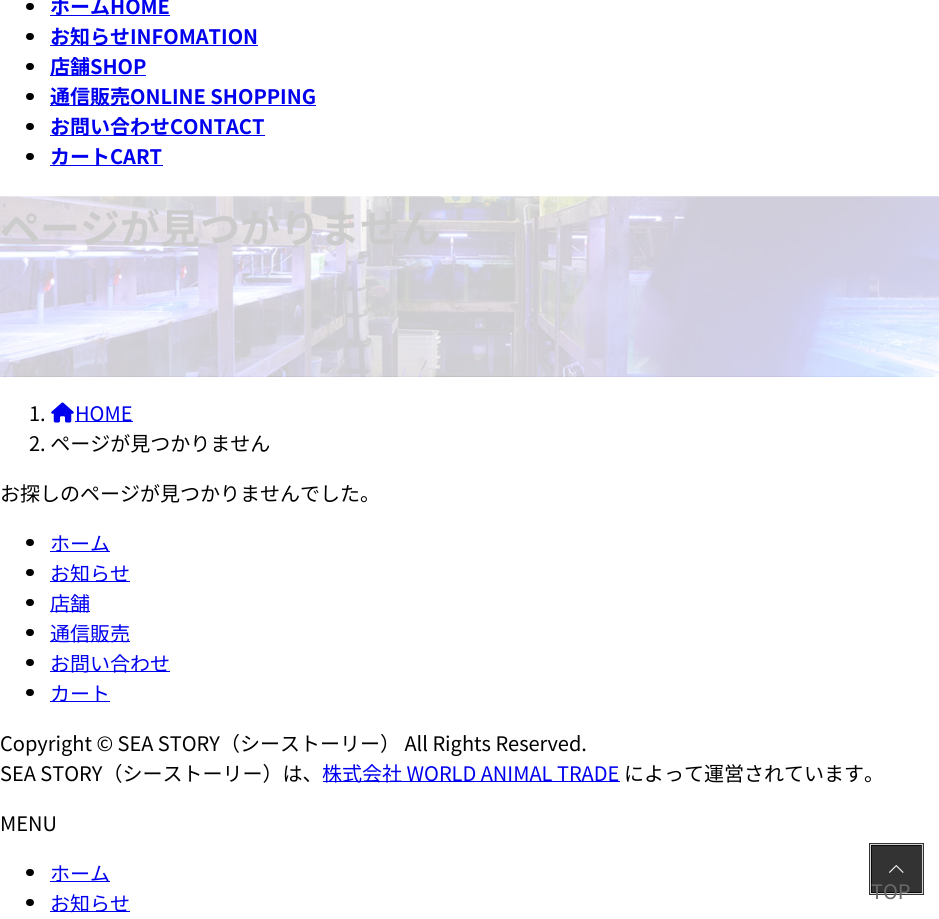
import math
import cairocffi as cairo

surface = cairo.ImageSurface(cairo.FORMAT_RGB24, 939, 919)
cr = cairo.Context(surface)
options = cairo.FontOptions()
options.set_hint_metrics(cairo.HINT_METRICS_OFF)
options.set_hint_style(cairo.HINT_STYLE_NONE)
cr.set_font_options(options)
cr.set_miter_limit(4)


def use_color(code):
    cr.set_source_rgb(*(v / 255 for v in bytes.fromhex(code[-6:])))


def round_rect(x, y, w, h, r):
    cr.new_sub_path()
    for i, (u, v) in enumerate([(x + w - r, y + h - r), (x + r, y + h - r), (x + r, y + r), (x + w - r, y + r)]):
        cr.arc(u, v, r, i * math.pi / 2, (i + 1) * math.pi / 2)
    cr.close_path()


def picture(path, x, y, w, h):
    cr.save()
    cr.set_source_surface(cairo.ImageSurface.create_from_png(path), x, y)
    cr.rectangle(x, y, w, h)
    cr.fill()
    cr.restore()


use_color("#ffffff")
cr.paint()
use_color("#000000")
round_rect(26, 3, 8, 7, 3.5)
cr.fill()
cr.select_font_face("Noto Sans JP", cairo.FONT_SLANT_NORMAL, cairo.FONT_WEIGHT_BOLD)
cr.set_font_size(20)
use_color("#0000ee")
cr.move_to(50, 14)
cr.show_text("ホームHOME")
cr.rectangle(50, 15, 120, 1)
cr.fill()
use_color("#000000")
round_rect(26, 33, 8, 7, 3.5)
cr.fill()
use_color("#0000ee")
cr.rectangle(50, 45, 208, 1)
cr.fill()
cr.move_to(50, 44)
cr.show_text("お知らせINFOMATION")
use_color("#000000")
round_rect(26, 63, 8, 7, 3.5)
cr.fill()
use_color("#0000ee")
cr.rectangle(50, 75, 96, 1)
cr.fill()
cr.move_to(50, 74)
cr.show_text("店舗SHOP")
use_color("#000000")
round_rect(26, 93, 8, 7, 3.5)
cr.fill()
use_color("#0000ee")
cr.rectangle(50, 105, 266, 1)
cr.fill()
cr.move_to(50, 104)
cr.show_text("通信販売ONLINE SHOPPING")
use_color("#000000")
round_rect(26, 123, 8, 7, 3.5)
cr.fill()
use_color("#0000ee")
cr.rectangle(50, 135, 215, 1)
cr.fill()
cr.move_to(50, 134)
cr.show_text("お問い合わせCONTACT")
use_color("#000000")
round_rect(26, 153, 8, 7, 3.5)
cr.fill()
use_color("#0000ee")
cr.move_to(50, 164)
cr.show_text("カートCART")
cr.rectangle(50, 165, 113, 1)
cr.fill()
picture("img1.png", 0, 196, 939, 181)
cr.set_font_size(40)
use_color("#cccccc")
cr.move_to(0, 243)
cr.show_text("ページが見つかりません")
cr.select_font_face("Noto Sans JP")
cr.set_font_size(20)
use_color("#000000")
cr.move_to(29, 421)
cr.show_text("1.")
picture("img2.png", 51, 402, 23, 21)
use_color("#0000ee")
cr.rectangle(75, 421, 58, 1)
cr.fill()
cr.move_to(75, 421)
cr.show_text("HOME")
use_color("#000000")
cr.move_to(29, 451)
cr.show_text("2. ページが見つかりません")
cr.move_to(0, 501)
cr.show_text("お探しのページが見つかりませんでした。")
round_rect(26, 539, 8, 7, 3.5)
cr.fill()
use_color("#0000ee")
cr.rectangle(50, 551, 60, 1)
cr.fill()
cr.move_to(50, 551)
cr.show_text("ホーム")
use_color("#000000")
round_rect(26, 569, 8, 7, 3.5)
cr.fill()
use_color("#0000ee")
cr.rectangle(50, 581, 80, 1)
cr.fill()
cr.move_to(50, 581)
cr.show_text("お知らせ")
use_color("#000000")
round_rect(26, 599, 8, 7, 3.5)
cr.fill()
use_color("#0000ee")
cr.rectangle(50, 611, 40, 1)
cr.fill()
cr.move_to(50, 611)
cr.show_text("店舗")
use_color("#000000")
round_rect(26, 629, 8, 7, 3.5)
cr.fill()
use_color("#0000ee")
cr.rectangle(50, 641, 80, 1)
cr.fill()
cr.move_to(50, 641)
cr.show_text("通信販売")
use_color("#000000")
round_rect(26, 659, 8, 7, 3.5)
cr.fill()
use_color("#0000ee")
cr.rectangle(50, 671, 120, 1)
cr.fill()
cr.move_to(50, 671)
cr.show_text("お問い合わせ")
use_color("#000000")
round_rect(26, 689, 8, 7, 3.5)
cr.fill()
use_color("#0000ee")
cr.rectangle(50, 701, 60, 1)
cr.fill()
cr.move_to(50, 701)
cr.show_text("カート")
use_color("#000000")
cr.move_to(0, 751)
cr.show_text("Copyright © SEA STORY（シーストーリー） All Rights Reserved.")
cr.move_to(0, 781)
cr.show_text("SEA STORY（シーストーリー）は、")
use_color("#0000ee")
cr.rectangle(323, 781, 297, 1)
cr.fill()
cr.move_to(322, 781)
cr.show_text("株式会社 WORLD ANIMAL TRADE")
use_color("#000000")
cr.move_to(624, 781)
cr.show_text("によって運営されています。")
cr.move_to(0, 831)
cr.show_text("MENU")
round_rect(26, 869, 8, 7, 3.5)
cr.fill()
use_color("#0000ee")
cr.rectangle(50, 881, 60, 1)
cr.fill()
cr.move_to(50, 881)
cr.show_text("ホーム")
use_color("#000000")
round_rect(26, 899, 8, 7, 3.5)
cr.fill()
use_color("#0000ee")
cr.rectangle(50, 911, 80, 1)
cr.fill()
cr.move_to(50, 911)
cr.show_text("お知らせ")
cr.rectangle(870.5, 844.5, 52, 49)
use_color("#333333")
cr.set_line_width(3)
cr.stroke()
cr.rectangle(870.5, 844.5, 52, 49)
use_color("#d6d6d6")
cr.set_line_width(1)
cr.stroke()
cr.set_source_rgba(0, 0, 0, 0.8)
cr.rectangle(871, 845, 50, 48)
cr.fill()
picture("img3.png", 889, 865, 15, 8)
use_color("#686868")
cr.move_to(871, 899)
cr.show_text("TOP")
surface.write_to_png("result.png")
